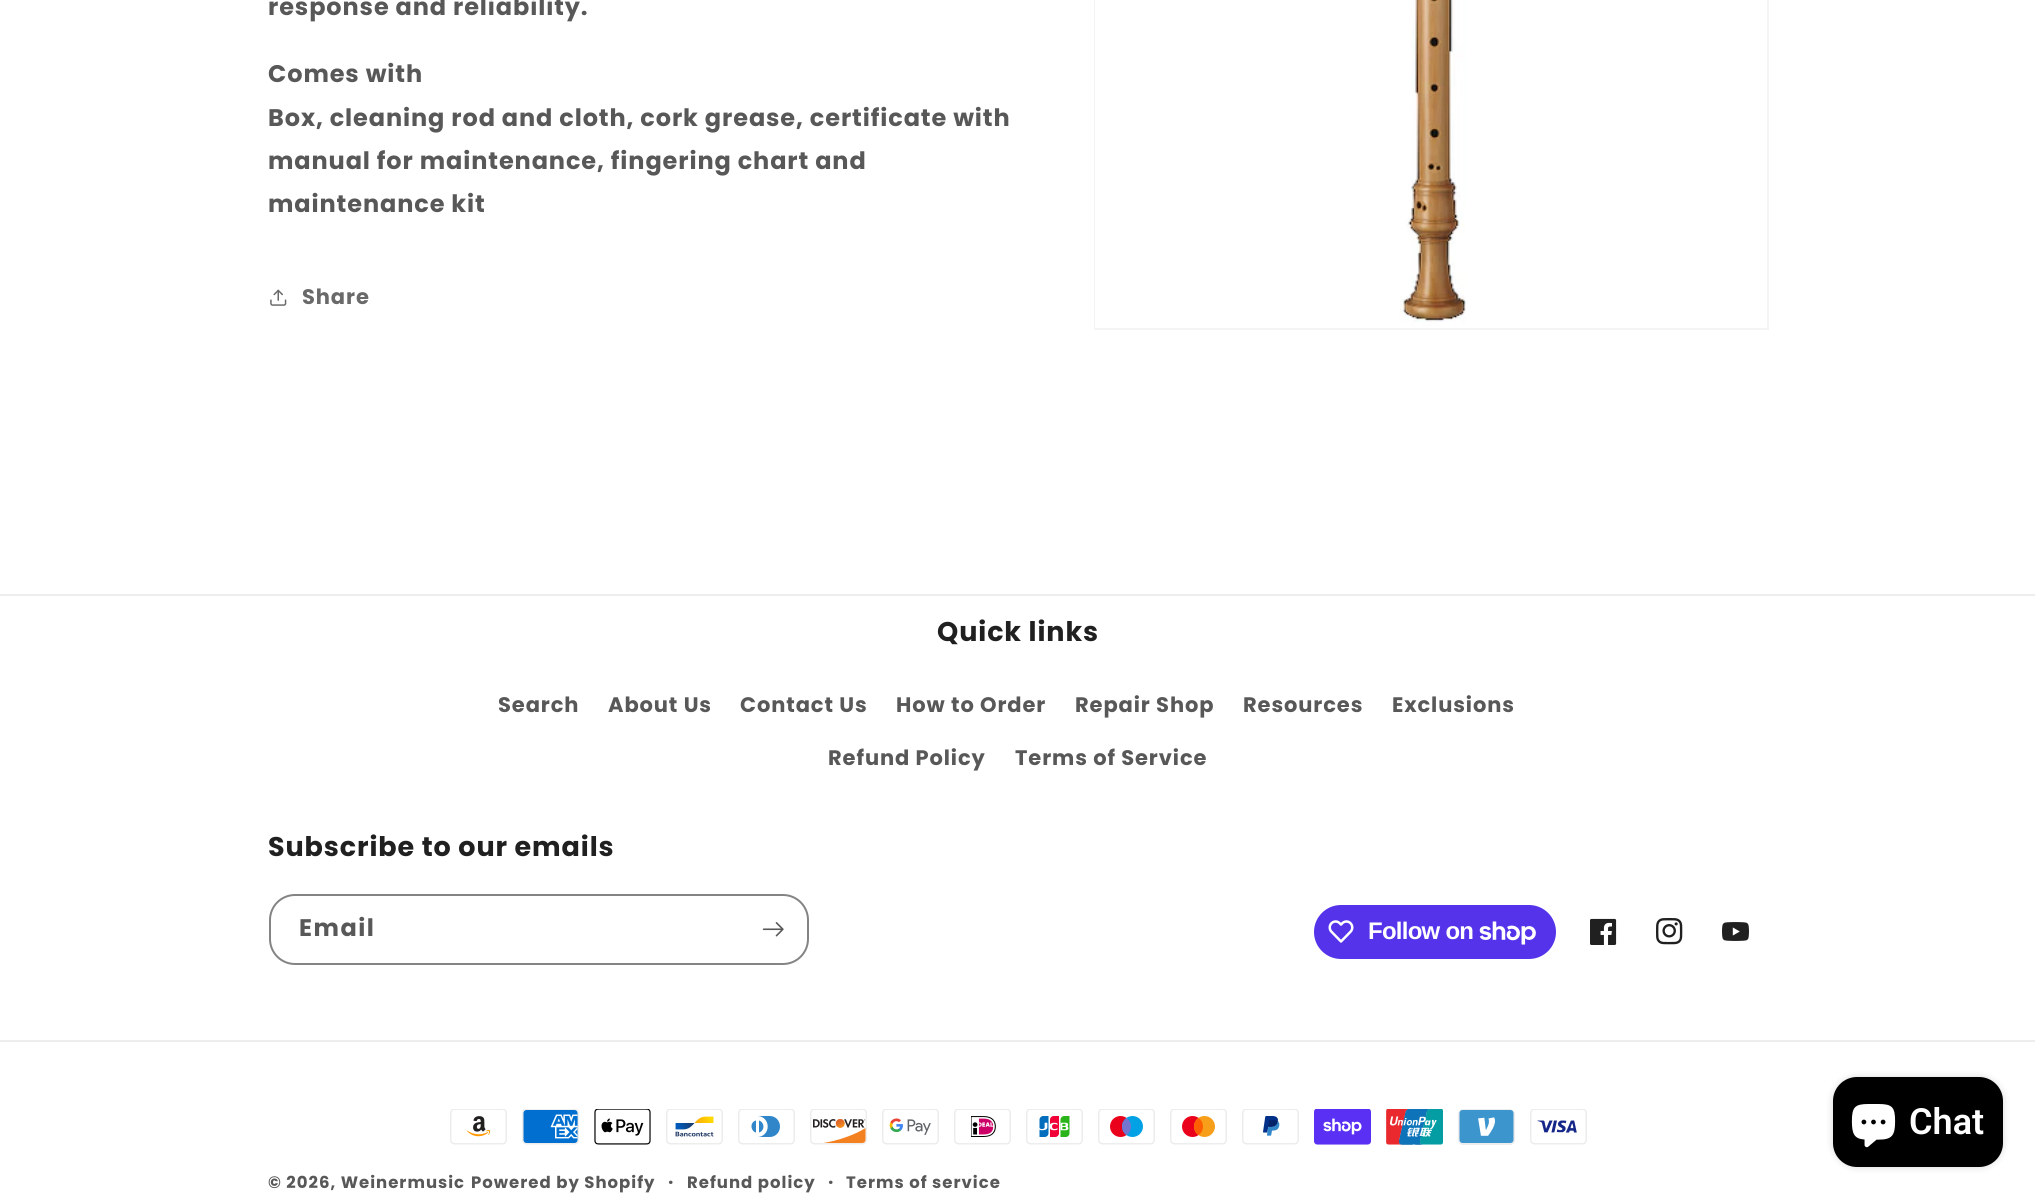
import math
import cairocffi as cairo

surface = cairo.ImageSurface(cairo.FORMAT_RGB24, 2035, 1198)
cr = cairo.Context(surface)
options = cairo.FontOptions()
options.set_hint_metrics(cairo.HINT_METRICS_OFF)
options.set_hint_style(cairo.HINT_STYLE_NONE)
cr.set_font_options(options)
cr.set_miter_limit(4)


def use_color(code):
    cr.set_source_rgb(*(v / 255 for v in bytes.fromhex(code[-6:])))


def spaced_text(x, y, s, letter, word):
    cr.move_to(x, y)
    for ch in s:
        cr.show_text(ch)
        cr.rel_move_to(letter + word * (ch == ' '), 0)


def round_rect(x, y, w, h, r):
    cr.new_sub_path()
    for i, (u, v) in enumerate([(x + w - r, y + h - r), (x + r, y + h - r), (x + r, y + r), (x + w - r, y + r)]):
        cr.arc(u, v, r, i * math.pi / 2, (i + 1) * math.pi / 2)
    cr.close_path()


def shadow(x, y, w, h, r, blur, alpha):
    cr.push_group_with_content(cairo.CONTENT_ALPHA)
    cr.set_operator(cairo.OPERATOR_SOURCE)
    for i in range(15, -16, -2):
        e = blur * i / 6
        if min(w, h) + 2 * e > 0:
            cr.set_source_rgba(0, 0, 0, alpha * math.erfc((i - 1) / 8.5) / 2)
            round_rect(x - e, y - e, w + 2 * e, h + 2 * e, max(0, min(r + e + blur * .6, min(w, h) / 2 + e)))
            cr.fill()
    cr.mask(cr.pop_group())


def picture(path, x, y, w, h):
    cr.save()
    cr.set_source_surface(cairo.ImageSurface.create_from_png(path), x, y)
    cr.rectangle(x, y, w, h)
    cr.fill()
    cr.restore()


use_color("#ffffff")
cr.paint()
cr.select_font_face("Poppins", cairo.FONT_SLANT_NORMAL, cairo.FONT_WEIGHT_BOLD)
cr.set_font_size(24)
use_color("#585858")
spaced_text(268, 15, "response and reliability.", 0.9, 0)
spaced_text(268, 82, "Comes with", 0.9, 0)
spaced_text(268, 126, "Box, cleaning rod and cloth, cork grease, certificate with", 0.9, 0)
spaced_text(268, 169, "manual for maintenance, fingering chart and", 0.9, 0)
spaced_text(268, 212, "maintenance kit", 0.9, 0)
picture("img1.png", 270, 289, 17, 17)
cr.set_font_size(21)
use_color("#696969")
spaced_text(302, 304, "Share", 0.9, 0)
cr.rectangle(1095, -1, 673, 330)
use_color("#f4f4f4")
cr.stroke()
picture("img2.png", 1095, 0, 371, 328)
use_color("#ededed")
cr.rectangle(0, 594, 2035, 2)
cr.fill()
cr.set_font_size(27)
use_color("#202020")
spaced_text(937, 641, "Quick links", 0.9, 0)
cr.set_font_size(21)
use_color("#585858")
spaced_text(498, 712, "Search", 0.9, 0)
spaced_text(608, 712, "About Us", 0.9, 0)
spaced_text(740, 712, "Contact Us", 0.9, 0)
spaced_text(896, 712, "How to Order", 0.9, 0)
spaced_text(1075, 712, "Repair Shop", 0.9, 0)
spaced_text(1243, 712, "Resources", 0.9, 0)
spaced_text(1392, 712, "Exclusions", 0.9, 0)
spaced_text(828, 765, "Refund Policy", 0.9, 0)
spaced_text(1015, 765, "Terms of Service", 0.9, 0)
cr.set_font_size(27)
use_color("#202020")
spaced_text(268, 856, "Subscribe to our emails", 0.9, 0)
round_rect(270, 895, 538, 69, 25)
use_color("#848484")
cr.stroke()
cr.set_font_size(24)
use_color("#585858")
spaced_text(299, 936, "Email", 1.5, 0)
picture("img3.png", 762, 922, 22, 15)
use_color("#5433eb")
round_rect(1314, 905, 242, 54, 27)
cr.fill()
picture("img4.png", 1328, 920, 26, 23)
cr.select_font_face("Liberation Sans", cairo.FONT_SLANT_NORMAL, cairo.FONT_WEIGHT_BOLD)
use_color("#ffffff")
spaced_text(1368, 939, "Follow on", -0.75, 0)
picture("img5.png", 1479, 921, 57, 24)
picture("img6.png", 1590, 918, 27, 27)
picture("img7.png", 1656, 918, 27, 27)
picture("img8.png", 1722, 922, 27, 19)
use_color("#ededed")
cr.rectangle(0, 1040, 2035, 2)
cr.fill()
picture("img9.png", 450, 1109, 57, 36)
picture("img10.png", 522, 1109, 57, 36)
picture("img11.png", 594, 1109, 57, 36)
picture("img12.png", 666, 1109, 57, 36)
picture("img13.png", 738, 1109, 57, 36)
picture("img14.png", 810, 1109, 57, 36)
picture("img15.png", 882, 1109, 57, 36)
picture("img16.png", 954, 1109, 57, 36)
picture("img17.png", 1026, 1109, 57, 36)
picture("img18.png", 1098, 1109, 57, 36)
picture("img19.png", 1170, 1109, 57, 36)
picture("img20.png", 1242, 1109, 57, 36)
picture("img21.png", 1314, 1109, 57, 36)
picture("img22.png", 1386, 1109, 57, 36)
picture("img23.png", 1458, 1109, 57, 36)
picture("img24.png", 1530, 1109, 57, 36)
cr.select_font_face("Poppins", cairo.FONT_SLANT_NORMAL, cairo.FONT_WEIGHT_BOLD)
cr.set_font_size(16.5)
use_color("#585858")
spaced_text(268, 1188, "© 2026, Weinermusic", 1, 0)
spaced_text(471, 1188, "Powered by Shopify", 1, 0)
cr.set_font_size(18)
spaced_text(668, 1188, "·", 1, 0)
cr.set_font_size(16.5)
spaced_text(687, 1188, "Refund policy", 1, 0)
cr.set_font_size(18)
spaced_text(828, 1188, "·", 1, 0)
cr.set_font_size(16.5)
spaced_text(846, 1188, "Terms of service", 1, 0)
use_color("#000000")
shadow(1833, 1077, 170, 90, 24, 4, 0.15)
use_color("#000000")
round_rect(1833, 1077, 170, 90, 24)
cr.fill()
picture("img25.png", 1851, 1104, 45, 44)
cr.select_font_face("Roboto SemiBold")
cr.set_font_size(36)
use_color("#ffffff")
cr.move_to(1909, 1134)
cr.show_text("Chat")
surface.write_to_png("result.png")
